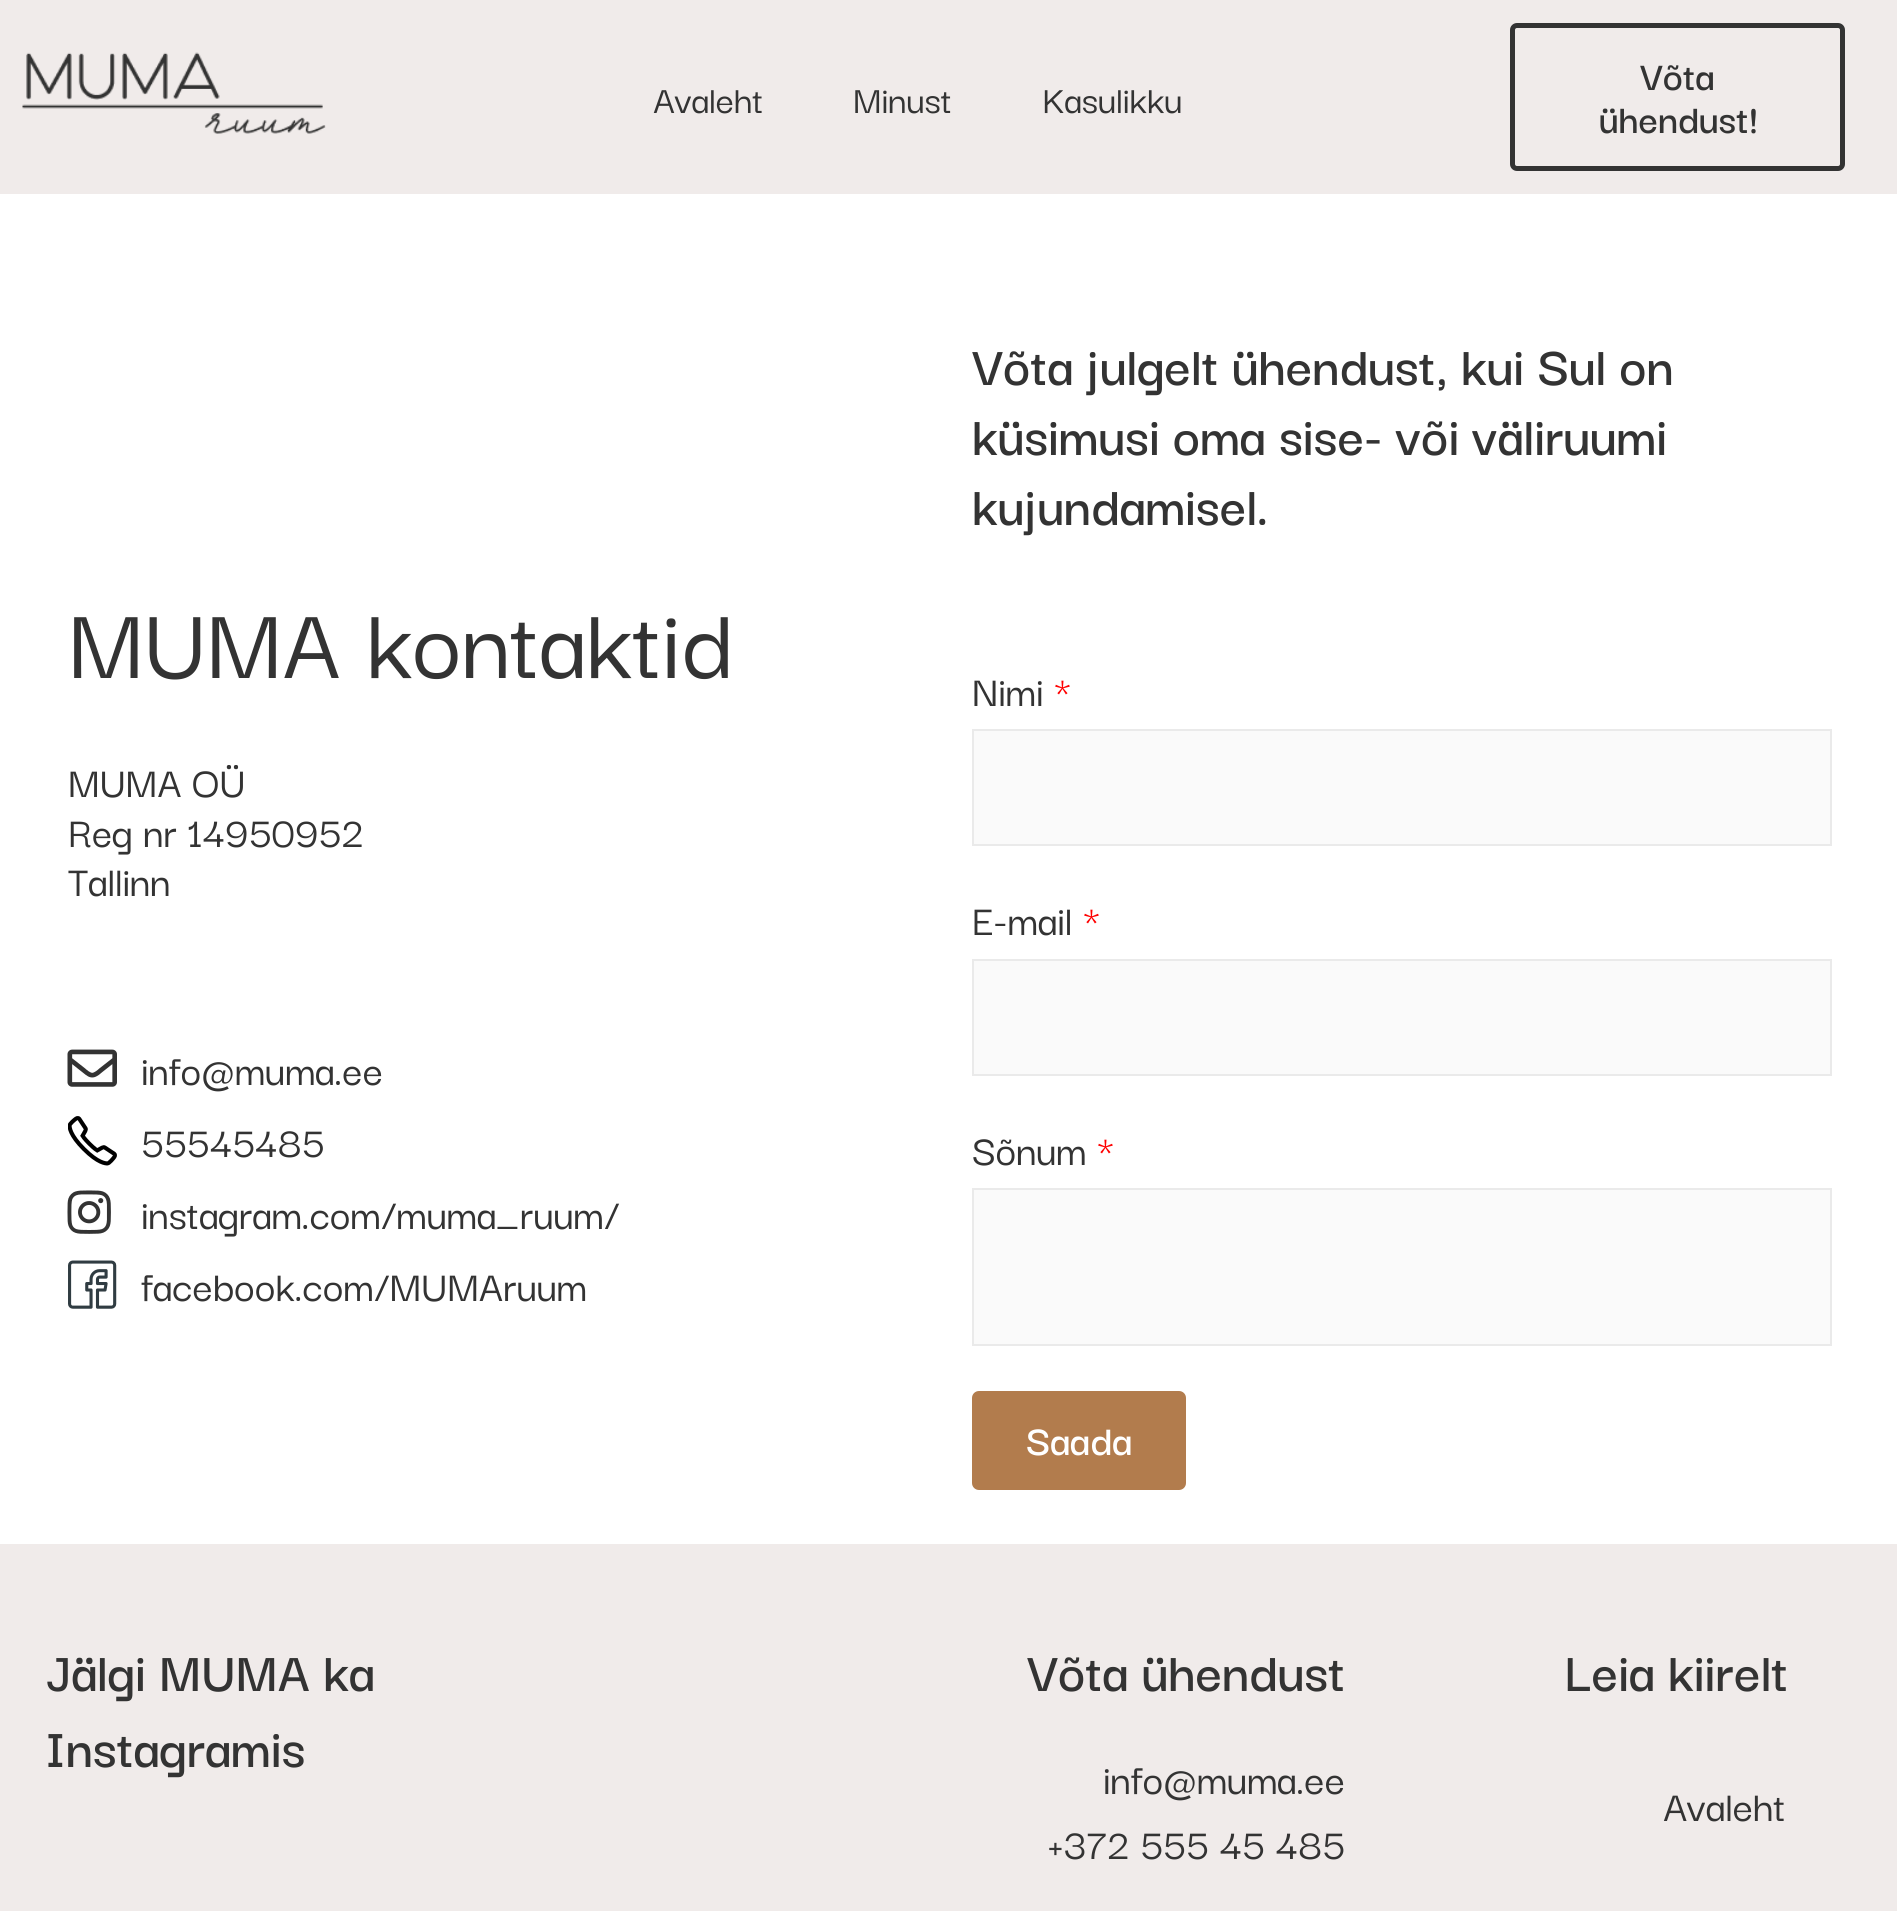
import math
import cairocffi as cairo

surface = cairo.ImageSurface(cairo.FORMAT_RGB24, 1897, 1911)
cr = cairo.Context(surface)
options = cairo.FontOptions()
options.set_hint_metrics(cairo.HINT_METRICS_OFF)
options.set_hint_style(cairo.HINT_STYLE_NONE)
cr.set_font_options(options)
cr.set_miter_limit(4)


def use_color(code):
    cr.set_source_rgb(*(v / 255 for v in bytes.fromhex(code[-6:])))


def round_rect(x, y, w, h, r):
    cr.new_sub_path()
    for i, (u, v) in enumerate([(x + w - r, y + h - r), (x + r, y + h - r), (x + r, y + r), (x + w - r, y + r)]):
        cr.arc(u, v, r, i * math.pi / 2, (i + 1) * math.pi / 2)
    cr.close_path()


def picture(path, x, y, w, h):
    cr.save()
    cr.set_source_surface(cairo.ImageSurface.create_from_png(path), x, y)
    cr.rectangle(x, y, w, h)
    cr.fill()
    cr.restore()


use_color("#ffffff")
cr.paint()
use_color("#f0ebea")
cr.rectangle(0, 0, 1897, 194)
cr.fill()
picture("img1.png", 22, 52, 304, 82)
cr.select_font_face("Darker Grotesque Medium")
cr.set_font_size(40.5)
use_color("#333333")
cr.move_to(653, 113)
cr.show_text("Avaleht")
cr.move_to(853, 113)
cr.show_text("Minust")
cr.move_to(1042, 113)
cr.show_text("Kasulikku")
round_rect(1512.5, 25.5, 330, 143, 4.5)
cr.set_line_width(5)
cr.stroke()
cr.select_font_face("Darker Grotesque SemiBold")
cr.set_font_size(43)
cr.move_to(1640, 90)
cr.show_text("Võta")
cr.move_to(1599, 133)
cr.show_text("ühendust!")
cr.select_font_face("Darker Grotesque Medium")
cr.set_font_size(108)
cr.move_to(68, 678)
cr.show_text("MUMA kontaktid")
cr.set_font_size(45)
cr.move_to(68, 797)
cr.show_text("MUMA OÜ")
cr.move_to(68, 847)
cr.show_text("Reg nr 14950952")
cr.move_to(68, 896)
cr.show_text("Tallinn")
picture("img2.png", 67, 1049, 50, 38)
cr.move_to(141, 1085)
cr.show_text("info@muma.ee")
picture("img3.png", 68, 1116, 49, 50)
cr.move_to(141, 1157)
cr.show_text("55545485")
picture("img4.png", 67, 1190, 44, 44)
cr.move_to(141, 1229)
cr.show_text("instagram.com/muma_ruum/")
picture("img5.png", 68, 1260, 49, 49)
cr.move_to(141, 1301)
cr.show_text("facebook.com/MUMAruum")
cr.select_font_face("Darker Grotesque SemiBold")
cr.set_font_size(58.5)
cr.move_to(972, 385)
cr.show_text("Võta julgelt ühendust, kui Sul on")
cr.move_to(972, 455)
cr.show_text("küsimusi oma sise- või väliruumi")
cr.move_to(972, 525)
cr.show_text("kujundamisel.")
cr.select_font_face("Darker Grotesque Medium")
cr.set_font_size(45)
cr.move_to(972, 706)
cr.show_text("Nimi")
cr.select_font_face("Darker Grotesque")
use_color("#ff0000")
cr.move_to(1054, 706)
cr.show_text("*")
use_color("#fafafa")
cr.rectangle(973, 730, 858, 115)
cr.fill_preserve()
use_color("#eaeaea")
cr.set_line_width(2)
cr.stroke()
cr.select_font_face("Darker Grotesque Medium")
use_color("#333333")
cr.move_to(972, 935)
cr.show_text("E-mail")
cr.select_font_face("Darker Grotesque")
use_color("#ff0000")
cr.move_to(1083, 935)
cr.show_text("*")
use_color("#fafafa")
cr.rectangle(973, 960, 858, 115)
cr.fill_preserve()
use_color("#eaeaea")
cr.stroke()
cr.select_font_face("Darker Grotesque Medium")
use_color("#333333")
cr.move_to(972, 1165)
cr.show_text("Sõnum")
cr.select_font_face("Darker Grotesque")
use_color("#ff0000")
cr.move_to(1097, 1165)
cr.show_text("*")
use_color("#fafafa")
cr.rectangle(973, 1189, 858, 156)
cr.fill_preserve()
use_color("#eaeaea")
cr.stroke()
use_color("#b27c4d")
round_rect(972, 1391, 214, 99, 7)
cr.fill()
cr.select_font_face("Darker Grotesque SemiBold")
use_color("#ffffff")
cr.move_to(1026, 1455)
cr.show_text("Saada")
use_color("#f0ebea")
cr.rectangle(0, 1544, 1897, 367)
cr.fill()
cr.set_font_size(58.5)
use_color("#333333")
cr.move_to(45, 1691)
cr.show_text("Jälgi MUMA ka")
cr.move_to(45, 1767)
cr.show_text("Instagramis")
cr.move_to(1027, 1691)
cr.show_text("Võta ühendust")
cr.select_font_face("Darker Grotesque Medium")
cr.set_font_size(45)
cr.move_to(1103, 1794)
cr.show_text("info@muma.ee")
cr.move_to(1047, 1859)
cr.show_text("+372 555 45 485")
cr.select_font_face("Darker Grotesque SemiBold")
cr.set_font_size(58.5)
cr.move_to(1564, 1691)
cr.show_text("Leia kiirelt")
cr.select_font_face("Darker Grotesque Medium")
cr.set_font_size(45)
cr.move_to(1663, 1821)
cr.show_text("Avaleht")
surface.write_to_png("result.png")
